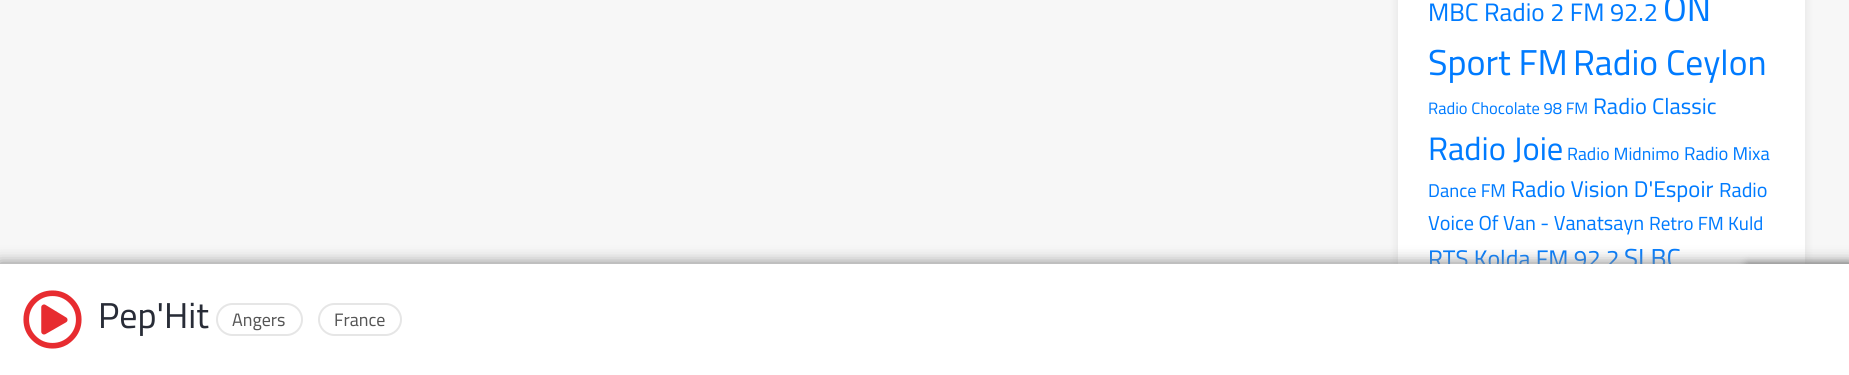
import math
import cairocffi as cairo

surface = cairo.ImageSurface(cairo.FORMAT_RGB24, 1849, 375)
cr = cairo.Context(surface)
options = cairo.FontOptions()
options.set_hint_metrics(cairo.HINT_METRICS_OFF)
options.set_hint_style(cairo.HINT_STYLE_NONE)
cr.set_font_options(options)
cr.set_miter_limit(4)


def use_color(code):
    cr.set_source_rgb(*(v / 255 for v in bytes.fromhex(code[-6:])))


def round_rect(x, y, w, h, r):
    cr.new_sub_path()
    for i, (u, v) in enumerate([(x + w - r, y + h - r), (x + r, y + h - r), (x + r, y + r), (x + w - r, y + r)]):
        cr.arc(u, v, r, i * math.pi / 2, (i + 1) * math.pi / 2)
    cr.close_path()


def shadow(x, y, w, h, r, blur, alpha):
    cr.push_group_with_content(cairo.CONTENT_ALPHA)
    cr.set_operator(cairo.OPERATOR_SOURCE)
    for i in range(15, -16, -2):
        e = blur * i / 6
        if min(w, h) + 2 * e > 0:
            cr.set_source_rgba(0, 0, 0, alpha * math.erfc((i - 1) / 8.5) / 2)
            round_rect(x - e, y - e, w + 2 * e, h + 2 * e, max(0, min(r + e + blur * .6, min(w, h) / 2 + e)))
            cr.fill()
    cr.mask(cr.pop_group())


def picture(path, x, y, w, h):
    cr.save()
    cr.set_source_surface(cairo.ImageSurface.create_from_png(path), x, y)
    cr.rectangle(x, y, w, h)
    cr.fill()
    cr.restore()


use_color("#f7f7f7")
cr.paint()
use_color("#000000")
shadow(1397, -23, 409, 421, 8, 5, 0.08)
use_color("#ffffff")
cr.rectangle(1398, 0, 407, 264)
cr.fill()
cr.select_font_face("Cairo")
cr.set_font_size(25.25)
use_color("#007bff")
cr.move_to(1428, 21)
cr.show_text("MBC Radio 2 FM 92.2")
cr.set_font_size(36)
cr.move_to(1663, 21)
cr.show_text("ON")
cr.move_to(1428, 75)
cr.show_text("Sport FM")
cr.set_font_size(35.5)
cr.move_to(1573, 75)
cr.show_text("Radio Ceylon")
cr.set_font_size(16.5)
cr.move_to(1428, 114)
cr.show_text("Radio Chocolate 98 FM")
cr.set_font_size(22.5)
cr.move_to(1593, 114)
cr.show_text("Radio Classic")
cr.set_font_size(32.5)
cr.move_to(1428, 160)
cr.show_text("Radio Joie")
cr.set_font_size(17.75)
cr.move_to(1567, 160)
cr.show_text("Radio Midnimo")
cr.set_font_size(18.5)
cr.move_to(1684, 160)
cr.show_text("Radio Mixa")
cr.move_to(1428, 197)
cr.show_text("Dance FM")
cr.set_font_size(22.75)
cr.move_to(1511, 197)
cr.show_text("Radio Vision D'Espoir")
cr.set_font_size(20.25)
cr.move_to(1719, 197)
cr.show_text("Radio")
cr.move_to(1428, 230)
cr.show_text("Voice Of Van - Vanatsayn")
cr.set_font_size(19)
cr.move_to(1649, 230)
cr.show_text("Retro FM Kuld")
cr.set_font_size(24)
cr.move_to(1428, 267)
cr.show_text("RTS Kolda FM 92.2")
cr.set_font_size(26)
cr.move_to(1624, 267)
cr.show_text("SLBC")
use_color("#888888")
shadow(-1, 263, 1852, 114, 0, 7.5, 1)
use_color("#808080")
shadow(1745, 264, 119, 90, 3, 4, 1)
use_color("#ffffff")
cr.rectangle(0, 264, 1849, 111)
cr.fill()
picture("img1.png", 23, 290, 59, 59)
cr.set_font_size(36)
use_color("#282c37")
cr.move_to(98, 328)
cr.show_text("Pep'Hit")
round_rect(217, 304, 85, 31, 15.5)
use_color("#e6e6e6")
cr.stroke()
cr.set_font_size(18)
use_color("#555555")
cr.move_to(232, 326)
cr.show_text("Angers")
round_rect(319, 304, 82, 31, 15.5)
use_color("#e6e6e6")
cr.stroke()
use_color("#555555")
cr.move_to(334, 326)
cr.show_text("France")
surface.write_to_png("result.png")
